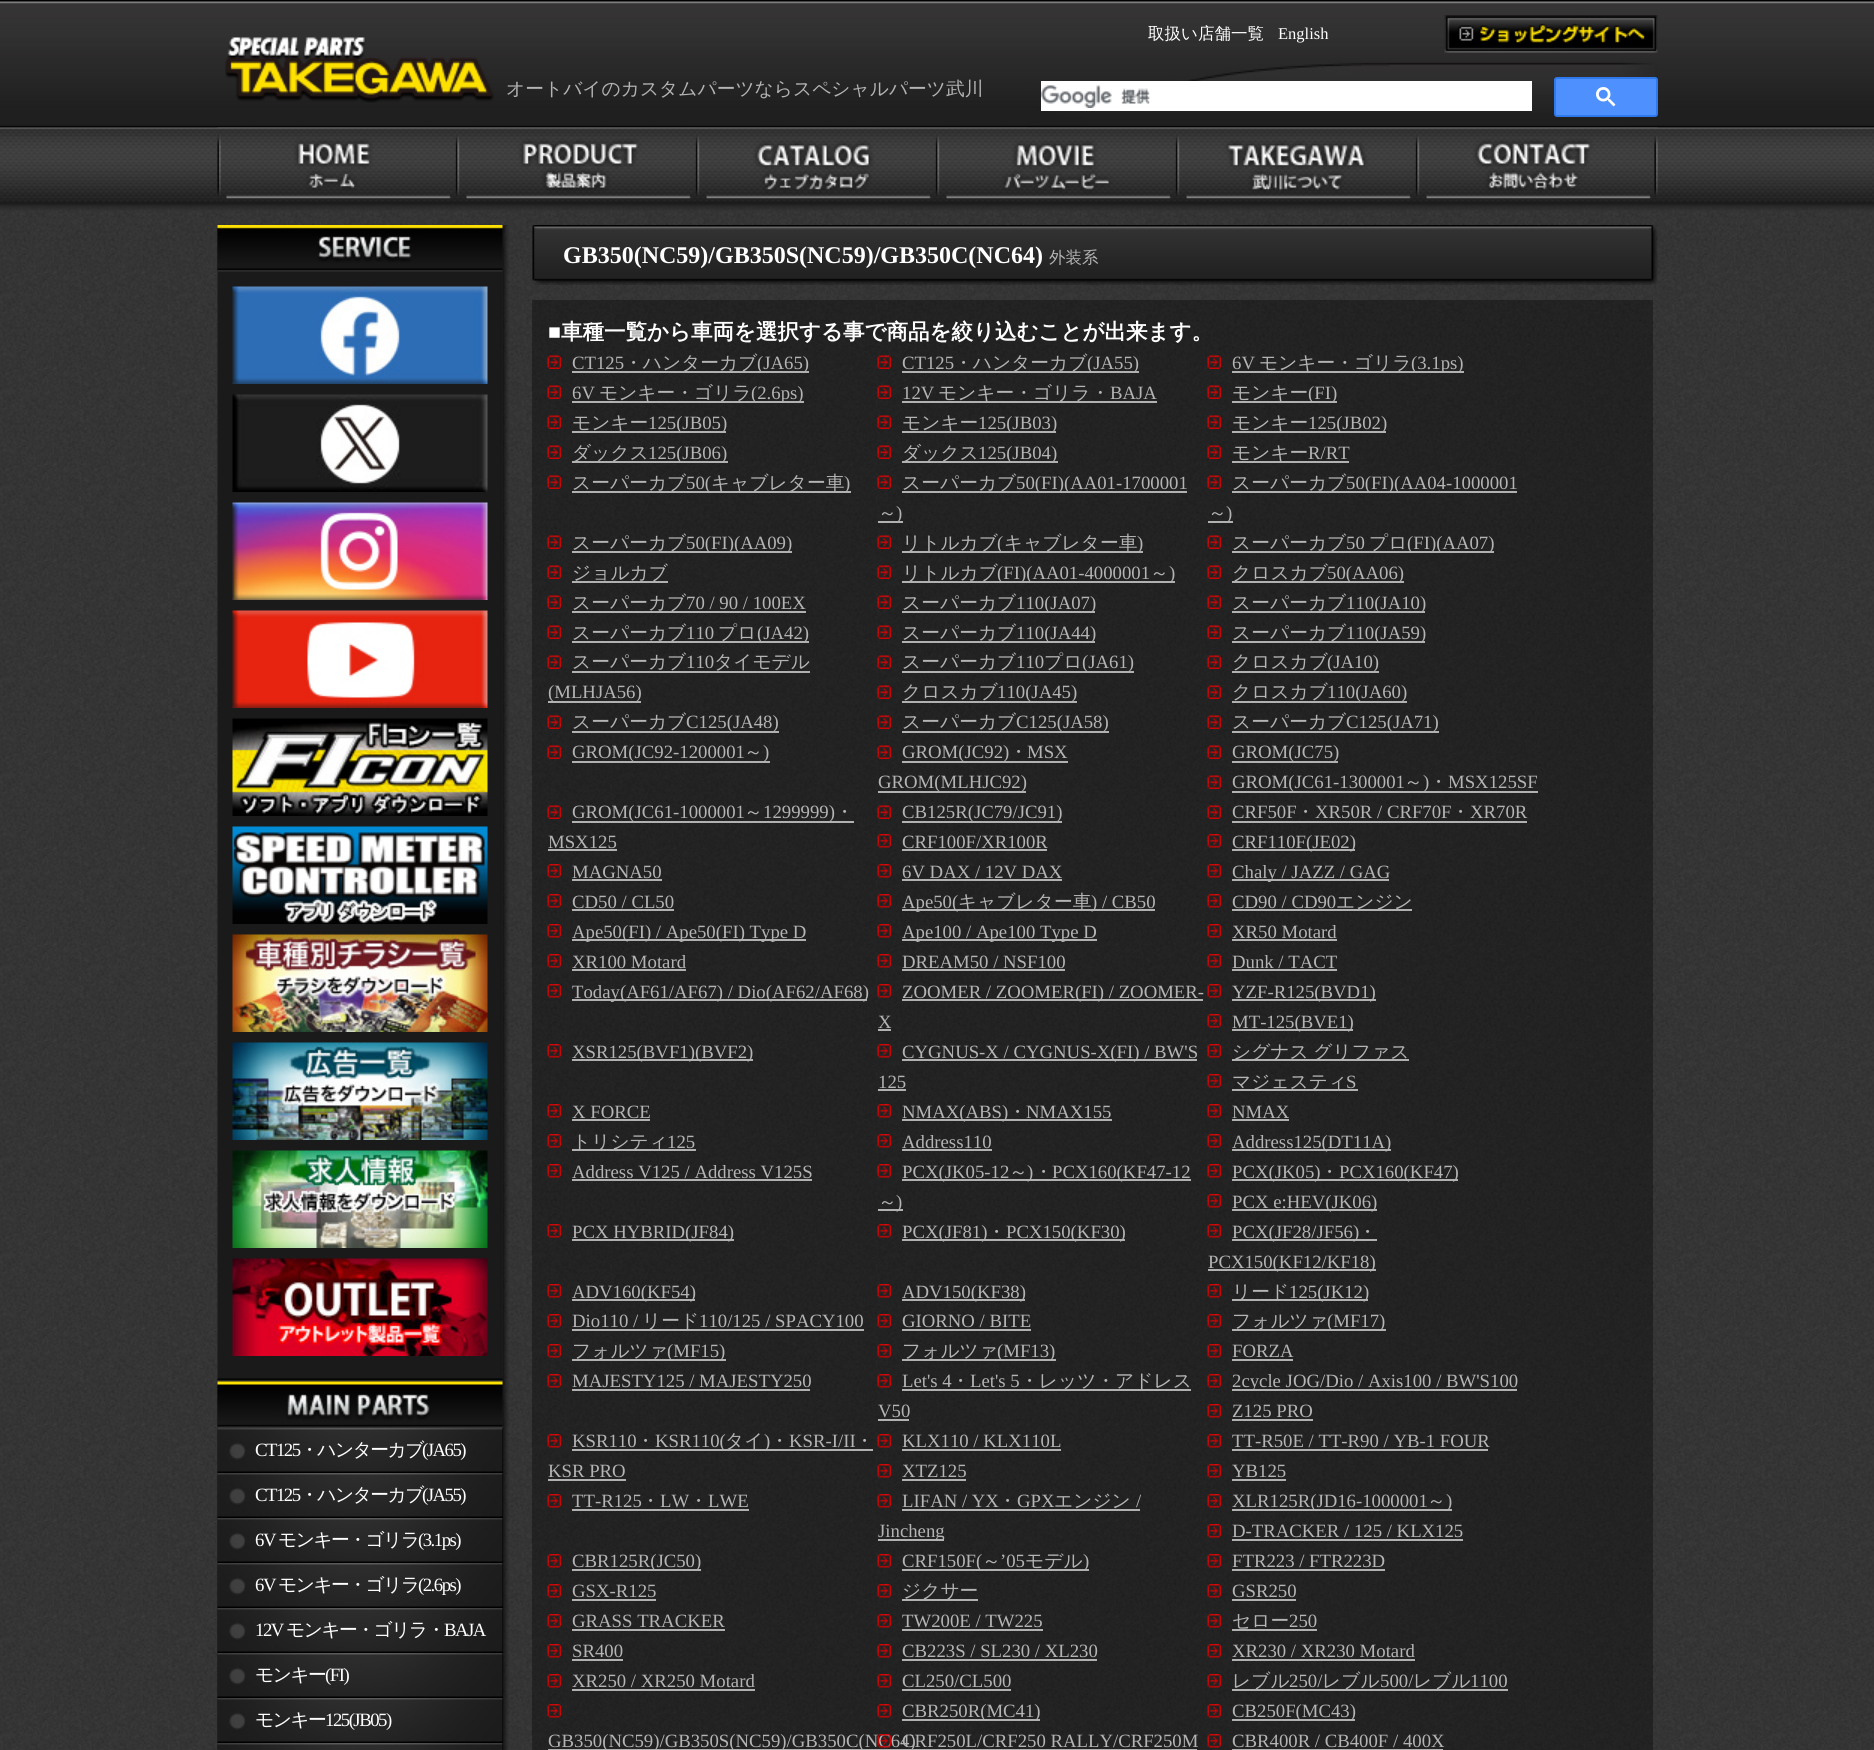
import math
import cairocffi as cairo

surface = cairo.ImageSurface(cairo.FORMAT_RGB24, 1874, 1750)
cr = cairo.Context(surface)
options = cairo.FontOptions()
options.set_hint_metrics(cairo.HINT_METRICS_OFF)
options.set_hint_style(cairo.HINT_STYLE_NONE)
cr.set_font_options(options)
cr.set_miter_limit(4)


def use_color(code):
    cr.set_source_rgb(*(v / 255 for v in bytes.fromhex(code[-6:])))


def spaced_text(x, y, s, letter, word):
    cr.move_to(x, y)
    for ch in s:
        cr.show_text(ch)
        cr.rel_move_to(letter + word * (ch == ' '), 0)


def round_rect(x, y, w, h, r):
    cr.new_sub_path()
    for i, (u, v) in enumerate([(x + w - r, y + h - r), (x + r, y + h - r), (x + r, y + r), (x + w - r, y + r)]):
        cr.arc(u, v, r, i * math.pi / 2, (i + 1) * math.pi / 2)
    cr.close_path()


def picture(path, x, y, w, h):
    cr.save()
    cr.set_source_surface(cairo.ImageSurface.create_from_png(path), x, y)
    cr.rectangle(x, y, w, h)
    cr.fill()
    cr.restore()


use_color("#ffffff")
cr.paint()
picture("img1.png", 0, 127, 1874, 1623)
picture("img2.png", 0, 0, 1874, 128)
picture("img3.png", 1027, 62, 631, 66)
cr.select_font_face("WenQuanYi Zen Hei Medium")
cr.set_font_size(16.5)
use_color("#ffffff")
cr.move_to(1148, 39)
cr.show_text("取扱い店舗一覧")
cr.select_font_face("Liberation Serif")
cr.move_to(1278, 39)
cr.show_text("English")
picture("img4.png", 1444, 15, 214, 38)
cr.rectangle(1041, 81, 491, 30)
cr.fill()
picture("img5.png", 1041, 85, 109, 23)
use_color("#4d90fe")
round_rect(1555, 78, 102, 38, 2)
cr.fill_preserve()
use_color("#3079ed")
cr.stroke()
picture("img6.png", 1596, 87, 20, 20)
picture("img7.png", 225, 37, 269, 66)
cr.select_font_face("WenQuanYi Zen Hei Medium")
cr.set_font_size(18.75)
use_color("#b4b4b4")
cr.move_to(506, 95)
cr.show_text("オートバイのカスタムパーツならスペシャルパーツ武川")
picture("img8.png", 0, 127, 1874, 84)
picture("img9.png", 217, 127, 241, 75)
picture("img10.png", 457, 127, 241, 75)
picture("img11.png", 697, 127, 241, 75)
picture("img12.png", 937, 127, 241, 75)
picture("img13.png", 1177, 127, 241, 75)
picture("img14.png", 1417, 127, 241, 75)
picture("img15.png", 217, 225, 292, 1525)
use_color("#1a1a1a")
cr.rectangle(501, 225, 2, 1203)
cr.fill()
picture("img16.png", 217, 225, 286, 47)
picture("img17.png", 217, 1378, 286, 4)
picture("img18.png", 232, 286, 256, 98)
picture("img19.png", 232, 394, 256, 98)
picture("img20.png", 232, 502, 256, 98)
picture("img21.png", 232, 610, 256, 98)
picture("img22.png", 232, 718, 256, 98)
picture("img23.png", 232, 826, 256, 98)
picture("img24.png", 232, 934, 256, 98)
picture("img25.png", 232, 1042, 256, 98)
picture("img26.png", 232, 1150, 256, 98)
picture("img27.png", 232, 1258, 256, 98)
picture("img28.png", 217, 1381, 286, 47)
use_color("#000000")
cr.rectangle(502, 1428, 1, 322)
cr.fill()
picture("img29.png", 217, 1428, 286, 45)
cr.select_font_face("Liberation Serif")
use_color("#ffffff")
spaced_text(255, 1456, "CT125", -1.5, 0)
cr.select_font_face("WenQuanYi Zen Hei Medium")
spaced_text(300, 1456, "・ハンターカブ", -1.5, 0)
cr.select_font_face("Liberation Serif")
spaced_text(422, 1456, "(JA65)", -1.5, 0)
picture("img30.png", 217, 1473, 286, 45)
spaced_text(255, 1501, "CT125", -1.5, 0)
cr.select_font_face("WenQuanYi Zen Hei Medium")
spaced_text(300, 1501, "・ハンターカブ", -1.5, 0)
cr.select_font_face("Liberation Serif")
spaced_text(422, 1501, "(JA55)", -1.5, 0)
picture("img31.png", 217, 1518, 286, 45)
spaced_text(255, 1546, "6V", -1.5, 0)
cr.select_font_face("WenQuanYi Zen Hei Medium")
spaced_text(278, 1546, "モンキー・ゴリラ", -1.5, 0)
cr.select_font_face("Liberation Serif")
spaced_text(418, 1546, "(3.1ps)", -1.5, 0)
picture("img32.png", 217, 1563, 286, 45)
spaced_text(255, 1591, "6V", -1.5, 0)
cr.select_font_face("WenQuanYi Zen Hei Medium")
spaced_text(278, 1591, "モンキー・ゴリラ", -1.5, 0)
cr.select_font_face("Liberation Serif")
spaced_text(418, 1591, "(2.6ps)", -1.5, 0)
picture("img33.png", 217, 1608, 286, 45)
spaced_text(255, 1636, "12V", -1.5, 0)
cr.select_font_face("WenQuanYi Zen Hei Medium")
spaced_text(286, 1636, "モンキー・ゴリラ・", -1.5, 0)
cr.select_font_face("Liberation Serif")
spaced_text(444, 1636, "BAJA", -1.5, 0)
picture("img34.png", 217, 1653, 286, 45)
cr.select_font_face("WenQuanYi Zen Hei Medium")
spaced_text(255, 1681, "モンキー", -1.5, 0)
cr.select_font_face("Liberation Serif")
spaced_text(325, 1681, "(FI)", -1.5, 0)
picture("img35.png", 217, 1698, 286, 45)
cr.select_font_face("WenQuanYi Zen Hei Medium")
spaced_text(255, 1726, "モンキー", -1.5, 0)
cr.select_font_face("Liberation Serif")
spaced_text(325, 1726, "125(JB05)", -1.5, 0)
picture("img36.png", 217, 1743, 286, 7)
picture("img37.png", 532, 225, 1126, 60)
cr.select_font_face("Liberation Serif", cairo.FONT_SLANT_NORMAL, cairo.FONT_WEIGHT_BOLD)
cr.set_font_size(24)
cr.move_to(563, 263)
cr.show_text("GB350(NC59)/GB350S(NC59)/GB350C(NC64)")
cr.select_font_face("WenQuanYi Zen Hei Medium")
cr.set_font_size(16.5)
use_color("#b4b4b4")
cr.move_to(1049, 263)
cr.show_text("外装系")
cr.set_source_rgba(0, 0, 0, 0.35)
cr.rectangle(532, 300, 1121, 1450)
cr.fill()
cr.select_font_face("Liberation Serif", cairo.FONT_SLANT_NORMAL, cairo.FONT_WEIGHT_BOLD)
cr.set_font_size(21.5)
use_color("#ffffff")
cr.move_to(548, 339)
cr.show_text("■")
cr.select_font_face("WenQuanYi Zen Hei", cairo.FONT_SLANT_NORMAL, cairo.FONT_WEIGHT_BOLD)
cr.move_to(561, 339)
cr.show_text("車種一覧から車両を選択する事で商品を絞り込むことが出来ます。")
picture("img38.png", 547, 355, 14, 14)
cr.select_font_face("Liberation Serif")
cr.set_font_size(18.75)
use_color("#b4b4b4")
cr.move_to(572, 369)
cr.show_text("CT125")
use_color("#b1b1b1")
cr.rectangle(572, 371, 237, 2)
cr.fill()
cr.select_font_face("WenQuanYi Zen Hei Medium")
use_color("#b4b4b4")
cr.move_to(624, 369)
cr.show_text("・ハンターカブ")
cr.select_font_face("Liberation Serif")
cr.move_to(757, 369)
cr.show_text("(JA65)")
picture("img39.png", 877, 355, 14, 14)
cr.move_to(902, 369)
cr.show_text("CT125")
use_color("#b1b1b1")
cr.rectangle(902, 371, 237, 2)
cr.fill()
cr.select_font_face("WenQuanYi Zen Hei Medium")
use_color("#b4b4b4")
cr.move_to(954, 369)
cr.show_text("・ハンターカブ")
cr.select_font_face("Liberation Serif")
cr.move_to(1087, 369)
cr.show_text("(JA55)")
picture("img40.png", 1207, 355, 14, 14)
cr.move_to(1232, 369)
cr.show_text("6V")
use_color("#b1b1b1")
cr.rectangle(1232, 371, 232, 2)
cr.fill()
cr.select_font_face("WenQuanYi Zen Hei Medium")
use_color("#b4b4b4")
cr.move_to(1259, 369)
cr.show_text("モンキー・ゴリラ")
cr.select_font_face("Liberation Serif")
cr.move_to(1411, 369)
cr.show_text("(3.1ps)")
picture("img41.png", 547, 385, 14, 14)
cr.move_to(572, 399)
cr.show_text("6V")
use_color("#b1b1b1")
cr.rectangle(572, 401, 232, 2)
cr.fill()
cr.select_font_face("WenQuanYi Zen Hei Medium")
use_color("#b4b4b4")
cr.move_to(599, 399)
cr.show_text("モンキー・ゴリラ")
cr.select_font_face("Liberation Serif")
cr.move_to(751, 399)
cr.show_text("(2.6ps)")
picture("img42.png", 877, 385, 14, 14)
cr.move_to(902, 399)
cr.show_text("12V")
use_color("#b1b1b1")
cr.rectangle(902, 401, 255, 2)
cr.fill()
cr.select_font_face("WenQuanYi Zen Hei Medium")
use_color("#b4b4b4")
cr.move_to(938, 399)
cr.show_text("モンキー・ゴリラ・")
cr.select_font_face("Liberation Serif")
cr.move_to(1110, 399)
cr.show_text("BAJA")
picture("img43.png", 1207, 385, 14, 14)
use_color("#b1b1b1")
cr.rectangle(1232, 401, 105, 2)
cr.fill()
cr.select_font_face("WenQuanYi Zen Hei Medium")
use_color("#b4b4b4")
cr.move_to(1232, 399)
cr.show_text("モンキー")
cr.select_font_face("Liberation Serif")
cr.move_to(1308, 399)
cr.show_text("(FI)")
picture("img44.png", 547, 415, 14, 14)
use_color("#b1b1b1")
cr.rectangle(572, 431, 154, 2)
cr.fill()
cr.select_font_face("WenQuanYi Zen Hei Medium")
use_color("#b4b4b4")
cr.move_to(572, 429)
cr.show_text("モンキー")
cr.select_font_face("Liberation Serif")
cr.move_to(648, 429)
cr.show_text("125(JB05)")
picture("img45.png", 877, 415, 14, 14)
use_color("#b1b1b1")
cr.rectangle(902, 431, 154, 2)
cr.fill()
cr.select_font_face("WenQuanYi Zen Hei Medium")
use_color("#b4b4b4")
cr.move_to(902, 429)
cr.show_text("モンキー")
cr.select_font_face("Liberation Serif")
cr.move_to(978, 429)
cr.show_text("125(JB03)")
picture("img46.png", 1207, 415, 14, 14)
use_color("#b1b1b1")
cr.rectangle(1232, 431, 154, 2)
cr.fill()
cr.select_font_face("WenQuanYi Zen Hei Medium")
use_color("#b4b4b4")
cr.move_to(1232, 429)
cr.show_text("モンキー")
cr.select_font_face("Liberation Serif")
cr.move_to(1308, 429)
cr.show_text("125(JB02)")
picture("img47.png", 547, 445, 14, 14)
use_color("#b1b1b1")
cr.rectangle(572, 461, 156, 2)
cr.fill()
cr.select_font_face("WenQuanYi Zen Hei Medium")
use_color("#b4b4b4")
cr.move_to(572, 459)
cr.show_text("ダックス")
cr.select_font_face("Liberation Serif")
cr.move_to(648, 459)
cr.show_text("125(JB06)")
picture("img48.png", 877, 445, 14, 14)
use_color("#b1b1b1")
cr.rectangle(902, 461, 156, 2)
cr.fill()
cr.select_font_face("WenQuanYi Zen Hei Medium")
use_color("#b4b4b4")
cr.move_to(902, 459)
cr.show_text("ダックス")
cr.select_font_face("Liberation Serif")
cr.move_to(978, 459)
cr.show_text("125(JB04)")
picture("img49.png", 1207, 445, 14, 14)
use_color("#b1b1b1")
cr.rectangle(1232, 461, 117, 2)
cr.fill()
cr.select_font_face("WenQuanYi Zen Hei Medium")
use_color("#b4b4b4")
cr.move_to(1232, 459)
cr.show_text("モンキー")
cr.select_font_face("Liberation Serif")
cr.move_to(1308, 459)
cr.show_text("R/RT")
picture("img50.png", 547, 475, 14, 14)
use_color("#b1b1b1")
cr.rectangle(572, 491, 279, 2)
cr.fill()
cr.select_font_face("WenQuanYi Zen Hei Medium")
use_color("#b4b4b4")
cr.move_to(572, 489)
cr.show_text("スーパーカブ")
cr.select_font_face("Liberation Serif")
cr.move_to(686, 489)
cr.show_text("50(")
cr.select_font_face("WenQuanYi Zen Hei Medium")
cr.move_to(711, 489)
cr.show_text("キャブレター車")
cr.select_font_face("Liberation Serif")
cr.move_to(844, 489)
cr.show_text(")")
picture("img51.png", 877, 475, 14, 14)
use_color("#b1b1b1")
cr.rectangle(902, 491, 285, 2)
cr.fill()
cr.select_font_face("WenQuanYi Zen Hei Medium")
use_color("#b4b4b4")
cr.move_to(902, 489)
cr.show_text("スーパーカブ")
cr.select_font_face("Liberation Serif")
cr.move_to(1016, 489)
cr.show_text("50(FI)(AA01-1700001")
cr.select_font_face("WenQuanYi Zen Hei Medium")
cr.move_to(878, 519)
cr.show_text("～")
use_color("#b1b1b1")
cr.rectangle(878, 521, 25, 2)
cr.fill()
cr.select_font_face("Liberation Serif")
use_color("#b4b4b4")
cr.move_to(896, 519)
cr.show_text(")")
picture("img52.png", 1207, 475, 14, 14)
use_color("#b1b1b1")
cr.rectangle(1232, 491, 285, 2)
cr.fill()
cr.select_font_face("WenQuanYi Zen Hei Medium")
use_color("#b4b4b4")
cr.move_to(1232, 489)
cr.show_text("スーパーカブ")
cr.select_font_face("Liberation Serif")
cr.move_to(1346, 489)
cr.show_text("50(FI)(AA04-1000001")
cr.select_font_face("WenQuanYi Zen Hei Medium")
cr.move_to(1208, 519)
cr.show_text("～")
use_color("#b1b1b1")
cr.rectangle(1208, 521, 25, 2)
cr.fill()
cr.select_font_face("Liberation Serif")
use_color("#b4b4b4")
cr.move_to(1226, 519)
cr.show_text(")")
picture("img53.png", 547, 535, 14, 14)
use_color("#b1b1b1")
cr.rectangle(572, 551, 220, 2)
cr.fill()
cr.select_font_face("WenQuanYi Zen Hei Medium")
use_color("#b4b4b4")
cr.move_to(572, 549)
cr.show_text("スーパーカブ")
cr.select_font_face("Liberation Serif")
cr.move_to(686, 549)
cr.show_text("50(FI)(AA09)")
picture("img54.png", 877, 535, 14, 14)
use_color("#b1b1b1")
cr.rectangle(902, 551, 241, 2)
cr.fill()
cr.select_font_face("WenQuanYi Zen Hei Medium")
use_color("#b4b4b4")
cr.move_to(902, 549)
cr.show_text("リトルカブ")
cr.select_font_face("Liberation Serif")
cr.move_to(997, 549)
cr.show_text("(")
cr.select_font_face("WenQuanYi Zen Hei Medium")
cr.move_to(1004, 549)
cr.show_text("キャブレター車")
cr.select_font_face("Liberation Serif")
cr.move_to(1137, 549)
cr.show_text(")")
picture("img55.png", 1207, 535, 14, 14)
use_color("#b1b1b1")
cr.rectangle(1232, 551, 262, 2)
cr.fill()
cr.select_font_face("WenQuanYi Zen Hei Medium")
use_color("#b4b4b4")
cr.move_to(1232, 549)
cr.show_text("スーパーカブ")
cr.select_font_face("Liberation Serif")
cr.move_to(1346, 549)
cr.show_text("50")
cr.select_font_face("WenQuanYi Zen Hei Medium")
cr.move_to(1369, 549)
cr.show_text("プロ")
cr.select_font_face("Liberation Serif")
cr.move_to(1407, 549)
cr.show_text("(FI)(AA07)")
picture("img56.png", 547, 565, 14, 14)
use_color("#b1b1b1")
cr.rectangle(572, 581, 96, 2)
cr.fill()
cr.select_font_face("WenQuanYi Zen Hei Medium")
use_color("#b4b4b4")
cr.move_to(572, 579)
cr.show_text("ジョルカブ")
picture("img57.png", 877, 565, 14, 14)
use_color("#b1b1b1")
cr.rectangle(902, 581, 273, 2)
cr.fill()
use_color("#b4b4b4")
cr.move_to(902, 579)
cr.show_text("リトルカブ")
cr.select_font_face("Liberation Serif")
cr.move_to(997, 579)
cr.show_text("(FI)(AA01-4000001")
cr.select_font_face("WenQuanYi Zen Hei Medium")
cr.move_to(1150, 579)
cr.show_text("～")
cr.select_font_face("Liberation Serif")
cr.move_to(1169, 579)
cr.show_text(")")
picture("img58.png", 1207, 565, 14, 14)
use_color("#b1b1b1")
cr.rectangle(1232, 581, 172, 2)
cr.fill()
cr.select_font_face("WenQuanYi Zen Hei Medium")
use_color("#b4b4b4")
cr.move_to(1232, 579)
cr.show_text("クロスカブ")
cr.select_font_face("Liberation Serif")
cr.move_to(1327, 579)
cr.show_text("50(AA06)")
picture("img59.png", 547, 595, 14, 14)
use_color("#b1b1b1")
cr.rectangle(572, 611, 234, 2)
cr.fill()
cr.select_font_face("WenQuanYi Zen Hei Medium")
use_color("#b4b4b4")
cr.move_to(572, 609)
cr.show_text("スーパーカブ")
cr.select_font_face("Liberation Serif")
cr.move_to(686, 609)
cr.show_text("70 / 90 / 100EX")
picture("img60.png", 877, 595, 14, 14)
use_color("#b1b1b1")
cr.rectangle(902, 611, 193, 2)
cr.fill()
cr.select_font_face("WenQuanYi Zen Hei Medium")
use_color("#b4b4b4")
cr.move_to(902, 609)
cr.show_text("スーパーカブ")
cr.select_font_face("Liberation Serif")
cr.move_to(1016, 609)
cr.show_text("110(JA07)")
picture("img61.png", 1207, 595, 14, 14)
use_color("#b1b1b1")
cr.rectangle(1232, 611, 193, 2)
cr.fill()
cr.select_font_face("WenQuanYi Zen Hei Medium")
use_color("#b4b4b4")
cr.move_to(1232, 609)
cr.show_text("スーパーカブ")
cr.select_font_face("Liberation Serif")
cr.move_to(1346, 609)
cr.show_text("110(JA10)")
picture("img62.png", 547, 625, 14, 14)
use_color("#b1b1b1")
cr.rectangle(572, 641, 237, 2)
cr.fill()
cr.select_font_face("WenQuanYi Zen Hei Medium")
use_color("#b4b4b4")
cr.move_to(572, 639)
cr.show_text("スーパーカブ")
cr.select_font_face("Liberation Serif")
cr.move_to(686, 639)
cr.show_text("110")
cr.select_font_face("WenQuanYi Zen Hei Medium")
cr.move_to(718, 639)
cr.show_text("プロ")
cr.select_font_face("Liberation Serif")
cr.move_to(757, 639)
cr.show_text("(JA42)")
picture("img63.png", 877, 625, 14, 14)
use_color("#b1b1b1")
cr.rectangle(902, 641, 193, 2)
cr.fill()
cr.select_font_face("WenQuanYi Zen Hei Medium")
use_color("#b4b4b4")
cr.move_to(902, 639)
cr.show_text("スーパーカブ")
cr.select_font_face("Liberation Serif")
cr.move_to(1016, 639)
cr.show_text("110(JA44)")
picture("img64.png", 1207, 625, 14, 14)
use_color("#b1b1b1")
cr.rectangle(1232, 641, 193, 2)
cr.fill()
cr.select_font_face("WenQuanYi Zen Hei Medium")
use_color("#b4b4b4")
cr.move_to(1232, 639)
cr.show_text("スーパーカブ")
cr.select_font_face("Liberation Serif")
cr.move_to(1346, 639)
cr.show_text("110(JA59)")
picture("img65.png", 547, 655, 14, 14)
cr.select_font_face("WenQuanYi Zen Hei Medium")
cr.move_to(572, 668)
cr.show_text("スーパーカブ")
cr.select_font_face("Liberation Serif")
cr.move_to(686, 668)
cr.show_text("110")
cr.select_font_face("WenQuanYi Zen Hei Medium")
cr.move_to(714, 668)
cr.show_text("タイモデル")
use_color("#b1b1b1")
cr.rectangle(572, 671, 238, 2)
cr.fill()
cr.rectangle(548, 701, 93, 2)
cr.fill()
cr.select_font_face("Liberation Serif")
use_color("#b4b4b4")
cr.move_to(548, 698)
cr.show_text("(MLHJA56)")
picture("img66.png", 877, 655, 14, 14)
cr.select_font_face("WenQuanYi Zen Hei Medium")
cr.move_to(902, 668)
cr.show_text("スーパーカブ")
cr.select_font_face("Liberation Serif")
cr.move_to(1016, 668)
cr.show_text("110")
cr.select_font_face("WenQuanYi Zen Hei Medium")
cr.move_to(1044, 668)
cr.show_text("プロ")
use_color("#b1b1b1")
cr.rectangle(902, 671, 232, 2)
cr.fill()
cr.select_font_face("Liberation Serif")
use_color("#b4b4b4")
cr.move_to(1082, 668)
cr.show_text("(JA61)")
picture("img67.png", 1207, 655, 14, 14)
cr.select_font_face("WenQuanYi Zen Hei Medium")
cr.move_to(1232, 668)
cr.show_text("クロスカブ")
use_color("#b1b1b1")
cr.rectangle(1232, 671, 147, 2)
cr.fill()
cr.select_font_face("Liberation Serif")
use_color("#b4b4b4")
cr.move_to(1327, 668)
cr.show_text("(JA10)")
picture("img68.png", 877, 685, 14, 14)
cr.select_font_face("WenQuanYi Zen Hei Medium")
cr.move_to(902, 698)
cr.show_text("クロスカブ")
use_color("#b1b1b1")
cr.rectangle(902, 701, 175, 2)
cr.fill()
cr.select_font_face("Liberation Serif")
use_color("#b4b4b4")
cr.move_to(997, 698)
cr.show_text("110(JA45)")
picture("img69.png", 1207, 685, 14, 14)
cr.select_font_face("WenQuanYi Zen Hei Medium")
cr.move_to(1232, 698)
cr.show_text("クロスカブ")
use_color("#b1b1b1")
cr.rectangle(1232, 701, 175, 2)
cr.fill()
cr.select_font_face("Liberation Serif")
use_color("#b4b4b4")
cr.move_to(1327, 698)
cr.show_text("110(JA60)")
picture("img70.png", 547, 715, 14, 14)
cr.select_font_face("WenQuanYi Zen Hei Medium")
cr.move_to(572, 728)
cr.show_text("スーパーカブ")
use_color("#b1b1b1")
cr.rectangle(572, 731, 207, 2)
cr.fill()
cr.select_font_face("Liberation Serif")
use_color("#b4b4b4")
cr.move_to(686, 728)
cr.show_text("C125(JA48)")
picture("img71.png", 877, 715, 14, 14)
cr.select_font_face("WenQuanYi Zen Hei Medium")
cr.move_to(902, 728)
cr.show_text("スーパーカブ")
use_color("#b1b1b1")
cr.rectangle(902, 731, 207, 2)
cr.fill()
cr.select_font_face("Liberation Serif")
use_color("#b4b4b4")
cr.move_to(1016, 728)
cr.show_text("C125(JA58)")
picture("img72.png", 1207, 715, 14, 14)
cr.select_font_face("WenQuanYi Zen Hei Medium")
cr.move_to(1232, 728)
cr.show_text("スーパーカブ")
use_color("#b1b1b1")
cr.rectangle(1232, 731, 207, 2)
cr.fill()
cr.select_font_face("Liberation Serif")
use_color("#b4b4b4")
cr.move_to(1346, 728)
cr.show_text("C125(JA71)")
picture("img73.png", 547, 745, 14, 14)
use_color("#b1b1b1")
cr.rectangle(572, 761, 198, 2)
cr.fill()
use_color("#b4b4b4")
cr.move_to(572, 758)
cr.show_text("GROM(JC92-1200001")
cr.select_font_face("WenQuanYi Zen Hei Medium")
cr.move_to(744, 758)
cr.show_text("～")
cr.select_font_face("Liberation Serif")
cr.move_to(763, 758)
cr.show_text(")")
picture("img74.png", 877, 745, 14, 14)
use_color("#b1b1b1")
cr.rectangle(902, 761, 166, 2)
cr.fill()
use_color("#b4b4b4")
cr.move_to(902, 758)
cr.show_text("GROM(JC92)")
cr.select_font_face("WenQuanYi Zen Hei Medium")
cr.move_to(1009, 758)
cr.show_text("・")
cr.select_font_face("Liberation Serif")
cr.move_to(1027, 758)
cr.show_text("MSX")
use_color("#b1b1b1")
cr.rectangle(878, 791, 148, 2)
cr.fill()
use_color("#b4b4b4")
cr.move_to(878, 788)
cr.show_text("GROM(MLHJC92)")
picture("img75.png", 1207, 745, 14, 14)
use_color("#b1b1b1")
cr.rectangle(1232, 761, 106, 2)
cr.fill()
use_color("#b4b4b4")
cr.move_to(1232, 758)
cr.show_text("GROM(JC75)")
picture("img76.png", 1207, 775, 14, 14)
use_color("#b1b1b1")
cr.rectangle(1232, 791, 306, 2)
cr.fill()
use_color("#b4b4b4")
cr.move_to(1232, 788)
cr.show_text("GROM(JC61-1300001")
cr.select_font_face("WenQuanYi Zen Hei Medium")
cr.move_to(1404, 788)
cr.show_text("～")
cr.select_font_face("Liberation Serif")
cr.move_to(1423, 788)
cr.show_text(")")
cr.select_font_face("WenQuanYi Zen Hei Medium")
cr.move_to(1429, 788)
cr.show_text("・")
cr.select_font_face("Liberation Serif")
cr.move_to(1448, 788)
cr.show_text("MSX125SF")
picture("img77.png", 547, 805, 14, 14)
use_color("#b1b1b1")
cr.rectangle(572, 821, 282, 2)
cr.fill()
use_color("#b4b4b4")
cr.move_to(572, 818)
cr.show_text("GROM(JC61-1000001")
cr.select_font_face("WenQuanYi Zen Hei Medium")
cr.move_to(744, 818)
cr.show_text("～")
cr.select_font_face("Liberation Serif")
cr.move_to(763, 818)
cr.show_text("1299999)")
cr.select_font_face("WenQuanYi Zen Hei Medium")
cr.move_to(835, 818)
cr.show_text("・")
cr.select_font_face("Liberation Serif")
cr.move_to(548, 848)
cr.show_text("MSX125")
use_color("#b1b1b1")
cr.rectangle(548, 849, 69, 2)
cr.fill()
picture("img78.png", 877, 805, 14, 14)
cr.rectangle(902, 821, 160, 2)
cr.fill()
use_color("#b4b4b4")
cr.move_to(902, 818)
cr.show_text("CB125R(JC79/JC91)")
picture("img79.png", 1207, 805, 14, 14)
cr.move_to(1232, 818)
cr.show_text("CRF50F")
use_color("#b1b1b1")
cr.rectangle(1232, 821, 295, 2)
cr.fill()
cr.select_font_face("WenQuanYi Zen Hei Medium")
use_color("#b4b4b4")
cr.move_to(1296, 818)
cr.show_text("・")
cr.select_font_face("Liberation Serif")
cr.move_to(1315, 818)
cr.show_text("XR50R / CRF70F")
cr.select_font_face("WenQuanYi Zen Hei Medium")
cr.move_to(1451, 818)
cr.show_text("・")
cr.select_font_face("Liberation Serif")
cr.move_to(1470, 818)
cr.show_text("XR70R")
picture("img80.png", 877, 834, 14, 14)
cr.move_to(902, 848)
cr.show_text("CRF100F/XR100R")
use_color("#b1b1b1")
cr.rectangle(902, 849, 145, 2)
cr.fill()
picture("img81.png", 1207, 834, 14, 14)
cr.rectangle(1232, 849, 123, 2)
cr.fill()
use_color("#b4b4b4")
cr.move_to(1232, 848)
cr.show_text("CRF110F(JE02)")
picture("img82.png", 547, 864, 14, 14)
cr.move_to(572, 878)
cr.show_text("MAGNA50")
use_color("#b1b1b1")
cr.rectangle(572, 879, 90, 2)
cr.fill()
picture("img83.png", 877, 864, 14, 14)
use_color("#b4b4b4")
cr.move_to(902, 878)
cr.show_text("6V DAX / 12V DAX")
use_color("#b1b1b1")
cr.rectangle(902, 879, 160, 2)
cr.fill()
picture("img84.png", 1207, 864, 14, 14)
cr.rectangle(1232, 879, 157, 2)
cr.fill()
use_color("#b4b4b4")
cr.move_to(1232, 878)
cr.show_text("Chaly / JAZZ / GAG")
picture("img85.png", 547, 894, 14, 14)
cr.move_to(572, 908)
cr.show_text("CD50 / CL50")
use_color("#b1b1b1")
cr.rectangle(572, 909, 102, 2)
cr.fill()
picture("img86.png", 877, 894, 14, 14)
cr.rectangle(902, 909, 253, 2)
cr.fill()
use_color("#b4b4b4")
cr.move_to(902, 908)
cr.show_text("Ape50(")
cr.select_font_face("WenQuanYi Zen Hei Medium")
cr.move_to(958, 908)
cr.show_text("キャブレター車")
cr.select_font_face("Liberation Serif")
cr.move_to(1091, 908)
cr.show_text(") / CB50")
picture("img87.png", 1207, 894, 14, 14)
cr.move_to(1232, 908)
cr.show_text("CD90 / CD90")
use_color("#b1b1b1")
cr.rectangle(1232, 909, 180, 2)
cr.fill()
cr.select_font_face("WenQuanYi Zen Hei Medium")
use_color("#b4b4b4")
cr.move_to(1336, 908)
cr.show_text("エンジン")
picture("img88.png", 547, 924, 14, 14)
use_color("#b1b1b1")
cr.rectangle(572, 939, 234, 2)
cr.fill()
cr.select_font_face("Liberation Serif")
use_color("#b4b4b4")
cr.move_to(572, 938)
cr.show_text("Ape50(FI) / Ape50(FI) Type D")
picture("img89.png", 877, 924, 14, 14)
use_color("#b1b1b1")
cr.rectangle(902, 939, 195, 2)
cr.fill()
use_color("#b4b4b4")
cr.move_to(902, 938)
cr.show_text("Ape100 / Ape100 Type D")
picture("img90.png", 1207, 924, 14, 14)
cr.move_to(1232, 938)
cr.show_text("XR50 Motard")
use_color("#b1b1b1")
cr.rectangle(1232, 939, 105, 2)
cr.fill()
picture("img91.png", 547, 954, 14, 14)
use_color("#b4b4b4")
cr.move_to(572, 968)
cr.show_text("XR100 Motard")
use_color("#b1b1b1")
cr.rectangle(572, 969, 114, 2)
cr.fill()
picture("img92.png", 877, 954, 14, 14)
use_color("#b4b4b4")
cr.move_to(902, 968)
cr.show_text("DREAM50 / NSF100")
use_color("#b1b1b1")
cr.rectangle(902, 969, 163, 2)
cr.fill()
picture("img93.png", 1207, 954, 14, 14)
use_color("#b4b4b4")
cr.move_to(1232, 968)
cr.show_text("Dunk / TACT")
use_color("#b1b1b1")
cr.rectangle(1232, 969, 105, 2)
cr.fill()
picture("img94.png", 547, 984, 14, 14)
cr.rectangle(572, 999, 295, 2)
cr.fill()
use_color("#b4b4b4")
cr.move_to(572, 998)
cr.show_text("Today(AF61/AF67) / Dio(AF62/AF68)")
picture("img95.png", 877, 984, 14, 14)
use_color("#b1b1b1")
cr.rectangle(902, 999, 301, 2)
cr.fill()
use_color("#b4b4b4")
cr.move_to(902, 998)
cr.show_text("ZOOMER / ZOOMER(FI) / ZOOMER-")
cr.move_to(878, 1028)
cr.show_text("X")
use_color("#b1b1b1")
cr.rectangle(878, 1029, 13, 2)
cr.fill()
picture("img96.png", 1207, 984, 14, 14)
cr.rectangle(1232, 999, 144, 2)
cr.fill()
use_color("#b4b4b4")
cr.move_to(1232, 998)
cr.show_text("YZF-R125(BVD1)")
picture("img97.png", 1207, 1014, 14, 14)
use_color("#b1b1b1")
cr.rectangle(1232, 1029, 121, 2)
cr.fill()
use_color("#b4b4b4")
cr.move_to(1232, 1028)
cr.show_text("MT-125(BVE1)")
picture("img98.png", 547, 1044, 14, 14)
use_color("#b1b1b1")
cr.rectangle(572, 1059, 181, 2)
cr.fill()
use_color("#b4b4b4")
cr.move_to(572, 1058)
cr.show_text("XSR125(BVF1)(BVF2)")
picture("img99.png", 877, 1044, 14, 14)
use_color("#b1b1b1")
cr.rectangle(902, 1059, 295, 2)
cr.fill()
use_color("#b4b4b4")
cr.move_to(902, 1058)
cr.show_text("CYGNUS-X / CYGNUS-X(FI) / BW'S")
cr.move_to(878, 1088)
cr.show_text("125")
use_color("#b1b1b1")
cr.rectangle(878, 1089, 28, 2)
cr.fill()
picture("img100.png", 1207, 1044, 14, 14)
cr.rectangle(1232, 1059, 177, 2)
cr.fill()
cr.select_font_face("WenQuanYi Zen Hei Medium")
use_color("#b4b4b4")
spaced_text(1232, 1058, "シグナス グリファス", 0, -1)
picture("img101.png", 1207, 1074, 14, 14)
use_color("#b1b1b1")
cr.rectangle(1232, 1089, 126, 2)
cr.fill()
use_color("#b4b4b4")
cr.move_to(1232, 1088)
cr.show_text("マジェスティ")
cr.select_font_face("Liberation Serif")
cr.move_to(1346, 1088)
cr.show_text("S")
picture("img102.png", 547, 1104, 14, 14)
cr.move_to(572, 1118)
cr.show_text("X FORCE")
use_color("#b1b1b1")
cr.rectangle(572, 1119, 78, 2)
cr.fill()
picture("img103.png", 877, 1104, 14, 14)
cr.rectangle(902, 1119, 210, 2)
cr.fill()
use_color("#b4b4b4")
cr.move_to(902, 1118)
cr.show_text("NMAX(ABS)")
cr.select_font_face("WenQuanYi Zen Hei Medium")
cr.move_to(1008, 1118)
cr.show_text("・")
cr.select_font_face("Liberation Serif")
cr.move_to(1026, 1118)
cr.show_text("NMAX155")
picture("img104.png", 1207, 1104, 14, 14)
cr.move_to(1232, 1118)
cr.show_text("NMAX")
use_color("#b1b1b1")
cr.rectangle(1232, 1119, 57, 2)
cr.fill()
picture("img105.png", 547, 1134, 14, 14)
cr.rectangle(572, 1149, 124, 2)
cr.fill()
cr.select_font_face("WenQuanYi Zen Hei Medium")
use_color("#b4b4b4")
cr.move_to(572, 1148)
cr.show_text("トリシティ")
cr.select_font_face("Liberation Serif")
cr.move_to(667, 1148)
cr.show_text("125")
picture("img106.png", 877, 1134, 14, 14)
cr.move_to(902, 1148)
cr.show_text("Address110")
use_color("#b1b1b1")
cr.rectangle(902, 1149, 90, 2)
cr.fill()
picture("img107.png", 1207, 1134, 14, 14)
cr.rectangle(1232, 1149, 159, 2)
cr.fill()
use_color("#b4b4b4")
cr.move_to(1232, 1148)
cr.show_text("Address125(DT11A)")
picture("img108.png", 547, 1164, 14, 14)
cr.move_to(572, 1178)
cr.show_text("Address V125 / Address V125S")
use_color("#b1b1b1")
cr.rectangle(572, 1179, 240, 2)
cr.fill()
picture("img109.png", 877, 1164, 14, 14)
cr.rectangle(902, 1179, 289, 2)
cr.fill()
use_color("#b4b4b4")
cr.move_to(902, 1178)
cr.show_text("PCX(JK05-12")
cr.select_font_face("WenQuanYi Zen Hei Medium")
cr.move_to(1009, 1178)
cr.show_text("～")
cr.select_font_face("Liberation Serif")
cr.move_to(1027, 1178)
cr.show_text(")")
cr.select_font_face("WenQuanYi Zen Hei Medium")
cr.move_to(1034, 1178)
cr.show_text("・")
cr.select_font_face("Liberation Serif")
cr.move_to(1052, 1178)
cr.show_text("PCX160(KF47-12")
cr.select_font_face("WenQuanYi Zen Hei Medium")
cr.move_to(878, 1208)
cr.show_text("～")
use_color("#b1b1b1")
cr.rectangle(878, 1209, 25, 2)
cr.fill()
cr.select_font_face("Liberation Serif")
use_color("#b4b4b4")
cr.move_to(896, 1208)
cr.show_text(")")
picture("img110.png", 1207, 1164, 14, 14)
use_color("#b1b1b1")
cr.rectangle(1232, 1179, 226, 2)
cr.fill()
use_color("#b4b4b4")
cr.move_to(1232, 1178)
cr.show_text("PCX(JK05)")
cr.select_font_face("WenQuanYi Zen Hei Medium")
cr.move_to(1320, 1178)
cr.show_text("・")
cr.select_font_face("Liberation Serif")
cr.move_to(1339, 1178)
cr.show_text("PCX160(KF47)")
picture("img111.png", 1207, 1194, 14, 14)
use_color("#b1b1b1")
cr.rectangle(1232, 1209, 145, 2)
cr.fill()
use_color("#b4b4b4")
cr.move_to(1232, 1208)
cr.show_text("PCX e:HEV(JK06)")
picture("img112.png", 547, 1224, 14, 14)
use_color("#b1b1b1")
cr.rectangle(572, 1239, 162, 2)
cr.fill()
use_color("#b4b4b4")
cr.move_to(572, 1238)
cr.show_text("PCX HYBRID(JF84)")
picture("img113.png", 877, 1224, 14, 14)
use_color("#b1b1b1")
cr.rectangle(902, 1239, 223, 2)
cr.fill()
use_color("#b4b4b4")
cr.move_to(902, 1238)
cr.show_text("PCX(JF81)")
cr.select_font_face("WenQuanYi Zen Hei Medium")
cr.move_to(987, 1238)
cr.show_text("・")
cr.select_font_face("Liberation Serif")
cr.move_to(1006, 1238)
cr.show_text("PCX150(KF30)")
picture("img114.png", 1207, 1224, 14, 14)
use_color("#b1b1b1")
cr.rectangle(1232, 1239, 145, 2)
cr.fill()
use_color("#b4b4b4")
cr.move_to(1232, 1238)
cr.show_text("PCX(JF28/JF56)")
cr.select_font_face("WenQuanYi Zen Hei Medium")
cr.move_to(1358, 1238)
cr.show_text("・")
use_color("#b1b1b1")
cr.rectangle(1208, 1269, 168, 2)
cr.fill()
cr.select_font_face("Liberation Serif")
use_color("#b4b4b4")
cr.move_to(1208, 1268)
cr.show_text("PCX150(KF12/KF18)")
picture("img115.png", 547, 1284, 14, 14)
use_color("#b1b1b1")
cr.rectangle(572, 1299, 123, 2)
cr.fill()
use_color("#b4b4b4")
cr.move_to(572, 1298)
cr.show_text("ADV160(KF54)")
picture("img116.png", 877, 1284, 14, 14)
use_color("#b1b1b1")
cr.rectangle(902, 1299, 123, 2)
cr.fill()
use_color("#b4b4b4")
cr.move_to(902, 1298)
cr.show_text("ADV150(KF38)")
picture("img117.png", 1207, 1284, 14, 14)
use_color("#b1b1b1")
cr.rectangle(1232, 1299, 136, 2)
cr.fill()
cr.select_font_face("WenQuanYi Zen Hei Medium")
use_color("#b4b4b4")
cr.move_to(1232, 1298)
cr.show_text("リード")
cr.select_font_face("Liberation Serif")
cr.move_to(1289, 1298)
cr.show_text("125(JK12)")
picture("img118.png", 547, 1314, 14, 14)
cr.move_to(572, 1327)
cr.show_text("Dio110 /")
use_color("#b1b1b1")
cr.rectangle(572, 1329, 292, 2)
cr.fill()
cr.select_font_face("WenQuanYi Zen Hei Medium")
use_color("#b4b4b4")
cr.move_to(642, 1327)
cr.show_text("リード")
cr.select_font_face("Liberation Serif")
cr.move_to(699, 1327)
cr.show_text("110/125 / SPACY100")
picture("img80.png", 877, 1314, 14, 14)
cr.move_to(902, 1327)
cr.show_text("GIORNO / BITE")
use_color("#b1b1b1")
cr.rectangle(902, 1329, 129, 2)
cr.fill()
picture("img81.png", 1207, 1314, 14, 14)
cr.rectangle(1232, 1329, 154, 2)
cr.fill()
cr.select_font_face("WenQuanYi Zen Hei Medium")
use_color("#b4b4b4")
cr.move_to(1232, 1327)
cr.show_text("フォルツァ")
cr.select_font_face("Liberation Serif")
cr.move_to(1327, 1327)
cr.show_text("(MF17)")
picture("img82.png", 547, 1344, 14, 14)
use_color("#b1b1b1")
cr.rectangle(572, 1359, 154, 2)
cr.fill()
cr.select_font_face("WenQuanYi Zen Hei Medium")
use_color("#b4b4b4")
cr.move_to(572, 1357)
cr.show_text("フォルツァ")
cr.select_font_face("Liberation Serif")
cr.move_to(667, 1357)
cr.show_text("(MF15)")
picture("img83.png", 877, 1344, 14, 14)
use_color("#b1b1b1")
cr.rectangle(902, 1359, 154, 2)
cr.fill()
cr.select_font_face("WenQuanYi Zen Hei Medium")
use_color("#b4b4b4")
cr.move_to(902, 1357)
cr.show_text("フォルツァ")
cr.select_font_face("Liberation Serif")
cr.move_to(997, 1357)
cr.show_text("(MF13)")
picture("img84.png", 1207, 1344, 14, 14)
cr.move_to(1232, 1357)
cr.show_text("FORZA")
use_color("#b1b1b1")
cr.rectangle(1232, 1359, 61, 2)
cr.fill()
picture("img85.png", 547, 1374, 14, 14)
use_color("#b4b4b4")
cr.move_to(572, 1387)
cr.show_text("MAJESTY125 / MAJESTY250")
use_color("#b1b1b1")
cr.rectangle(572, 1389, 238, 2)
cr.fill()
picture("img86.png", 877, 1374, 14, 14)
use_color("#b4b4b4")
cr.move_to(902, 1387)
cr.show_text("Let's 4")
cr.select_font_face("WenQuanYi Zen Hei Medium")
cr.move_to(951, 1387)
cr.show_text("・")
cr.select_font_face("Liberation Serif")
cr.move_to(970, 1387)
cr.show_text("Let's 5")
use_color("#b1b1b1")
cr.rectangle(902, 1389, 289, 2)
cr.fill()
cr.select_font_face("WenQuanYi Zen Hei Medium")
use_color("#b4b4b4")
cr.move_to(1020, 1387)
cr.show_text("・レッツ・アドレス")
cr.select_font_face("Liberation Serif")
cr.move_to(878, 1417)
cr.show_text("V50")
use_color("#b1b1b1")
cr.rectangle(878, 1419, 31, 2)
cr.fill()
picture("img87.png", 1207, 1374, 14, 14)
cr.rectangle(1232, 1389, 285, 2)
cr.fill()
use_color("#b4b4b4")
cr.move_to(1232, 1387)
cr.show_text("2cycle JOG/Dio / Axis100 / BW'S100")
picture("img90.png", 1207, 1404, 14, 14)
cr.move_to(1232, 1417)
cr.show_text("Z125 PRO")
use_color("#b1b1b1")
cr.rectangle(1232, 1419, 81, 2)
cr.fill()
picture("img91.png", 547, 1434, 14, 14)
use_color("#b4b4b4")
cr.move_to(572, 1447)
cr.show_text("KSR110")
cr.select_font_face("WenQuanYi Zen Hei Medium")
cr.move_to(636, 1447)
cr.show_text("・")
use_color("#b1b1b1")
cr.rectangle(572, 1449, 301, 2)
cr.fill()
cr.select_font_face("Liberation Serif")
use_color("#b4b4b4")
cr.move_to(655, 1447)
cr.show_text("KSR110(")
cr.select_font_face("WenQuanYi Zen Hei Medium")
cr.move_to(725, 1447)
cr.show_text("タイ")
cr.select_font_face("Liberation Serif")
cr.move_to(764, 1447)
cr.show_text(")")
cr.select_font_face("WenQuanYi Zen Hei Medium")
cr.move_to(770, 1447)
cr.show_text("・")
cr.select_font_face("Liberation Serif")
cr.move_to(789, 1447)
cr.show_text("KSR-I/II")
cr.select_font_face("WenQuanYi Zen Hei Medium")
cr.move_to(855, 1447)
cr.show_text("・")
cr.select_font_face("Liberation Serif")
cr.move_to(548, 1477)
cr.show_text("KSR PRO")
use_color("#b1b1b1")
cr.rectangle(548, 1479, 78, 2)
cr.fill()
picture("img92.png", 877, 1434, 14, 14)
use_color("#b4b4b4")
cr.move_to(902, 1447)
cr.show_text("KLX110 / KLX110L")
use_color("#b1b1b1")
cr.rectangle(902, 1449, 159, 2)
cr.fill()
picture("img93.png", 1207, 1434, 14, 14)
use_color("#b4b4b4")
cr.move_to(1232, 1447)
cr.show_text("TT-R50E / TT-R90 / YB-1 FOUR")
use_color("#b1b1b1")
cr.rectangle(1232, 1449, 256, 2)
cr.fill()
picture("img95.png", 877, 1464, 14, 14)
use_color("#b4b4b4")
cr.move_to(902, 1477)
cr.show_text("XTZ125")
use_color("#b1b1b1")
cr.rectangle(902, 1479, 64, 2)
cr.fill()
picture("img96.png", 1207, 1464, 14, 14)
use_color("#b4b4b4")
cr.move_to(1232, 1477)
cr.show_text("YB125")
use_color("#b1b1b1")
cr.rectangle(1232, 1479, 54, 2)
cr.fill()
picture("img119.png", 547, 1494, 14, 14)
use_color("#b4b4b4")
cr.move_to(572, 1507)
cr.show_text("TT-R125")
use_color("#b1b1b1")
cr.rectangle(572, 1509, 177, 2)
cr.fill()
cr.select_font_face("WenQuanYi Zen Hei Medium")
use_color("#b4b4b4")
cr.move_to(641, 1507)
cr.show_text("・")
cr.select_font_face("Liberation Serif")
cr.move_to(660, 1507)
cr.show_text("LW")
cr.select_font_face("WenQuanYi Zen Hei Medium")
cr.move_to(689, 1507)
cr.show_text("・")
cr.select_font_face("Liberation Serif")
cr.move_to(708, 1507)
cr.show_text("LWE")
picture("img120.png", 877, 1494, 14, 14)
cr.move_to(902, 1507)
cr.show_text("LIFAN / YX")
use_color("#b1b1b1")
cr.rectangle(902, 1509, 238, 2)
cr.fill()
cr.select_font_face("WenQuanYi Zen Hei Medium")
use_color("#b4b4b4")
cr.move_to(998, 1507)
cr.show_text("・")
cr.select_font_face("Liberation Serif")
cr.move_to(1017, 1507)
cr.show_text("GPX")
cr.select_font_face("WenQuanYi Zen Hei Medium")
cr.move_to(1054, 1507)
cr.show_text("エンジン")
cr.select_font_face("Liberation Serif")
cr.move_to(1136, 1507)
cr.show_text("/")
use_color("#b1b1b1")
cr.rectangle(878, 1539, 66, 2)
cr.fill()
use_color("#b4b4b4")
cr.move_to(878, 1537)
cr.show_text("Jincheng")
picture("img97.png", 1207, 1494, 14, 14)
use_color("#b1b1b1")
cr.rectangle(1232, 1509, 220, 2)
cr.fill()
use_color("#b4b4b4")
cr.move_to(1232, 1507)
cr.show_text("XLR125R(JD16-1000001")
cr.select_font_face("WenQuanYi Zen Hei Medium")
cr.move_to(1427, 1507)
cr.show_text("～")
cr.select_font_face("Liberation Serif")
cr.move_to(1446, 1507)
cr.show_text(")")
picture("img100.png", 1207, 1524, 14, 14)
cr.move_to(1232, 1537)
cr.show_text("D-TRACKER / 125 / KLX125")
use_color("#b1b1b1")
cr.rectangle(1232, 1539, 231, 2)
cr.fill()
picture("img121.png", 547, 1554, 14, 14)
cr.rectangle(572, 1569, 129, 2)
cr.fill()
use_color("#b4b4b4")
cr.move_to(572, 1567)
cr.show_text("CBR125R(JC50)")
picture("img122.png", 877, 1554, 14, 14)
use_color("#b1b1b1")
cr.rectangle(902, 1569, 187, 2)
cr.fill()
use_color("#b4b4b4")
cr.move_to(902, 1567)
cr.show_text("CRF150F(")
cr.select_font_face("WenQuanYi Zen Hei Medium")
cr.move_to(982, 1567)
cr.show_text("～")
cr.select_font_face("Liberation Serif")
cr.move_to(1000, 1567)
cr.show_text("’05")
cr.select_font_face("WenQuanYi Zen Hei Medium")
cr.move_to(1025, 1567)
cr.show_text("モデル")
cr.select_font_face("Liberation Serif")
cr.move_to(1083, 1567)
cr.show_text(")")
picture("img101.png", 1207, 1554, 14, 14)
cr.move_to(1232, 1567)
cr.show_text("FTR223 / FTR223D")
use_color("#b1b1b1")
cr.rectangle(1232, 1569, 153, 2)
cr.fill()
picture("img102.png", 547, 1584, 14, 14)
use_color("#b4b4b4")
cr.move_to(572, 1597)
cr.show_text("GSX-R125")
use_color("#b1b1b1")
cr.rectangle(572, 1599, 84, 2)
cr.fill()
picture("img103.png", 877, 1584, 14, 14)
cr.rectangle(902, 1599, 76, 2)
cr.fill()
cr.select_font_face("WenQuanYi Zen Hei Medium")
use_color("#b4b4b4")
cr.move_to(902, 1597)
cr.show_text("ジクサー")
picture("img104.png", 1207, 1584, 14, 14)
cr.select_font_face("Liberation Serif")
cr.move_to(1232, 1597)
cr.show_text("GSR250")
use_color("#b1b1b1")
cr.rectangle(1232, 1599, 64, 2)
cr.fill()
picture("img105.png", 547, 1614, 14, 14)
use_color("#b4b4b4")
cr.move_to(572, 1627)
cr.show_text("GRASS TRACKER")
use_color("#b1b1b1")
cr.rectangle(572, 1629, 153, 2)
cr.fill()
picture("img106.png", 877, 1614, 14, 14)
use_color("#b4b4b4")
cr.move_to(902, 1627)
cr.show_text("TW200E / TW225")
use_color("#b1b1b1")
cr.rectangle(902, 1629, 141, 2)
cr.fill()
picture("img107.png", 1207, 1614, 14, 14)
cr.select_font_face("WenQuanYi Zen Hei Medium")
use_color("#b4b4b4")
cr.move_to(1232, 1627)
cr.show_text("セロー")
use_color("#b1b1b1")
cr.rectangle(1232, 1629, 85, 2)
cr.fill()
cr.select_font_face("Liberation Serif")
use_color("#b4b4b4")
cr.move_to(1289, 1627)
cr.show_text("250")
picture("img108.png", 547, 1644, 14, 14)
cr.move_to(572, 1657)
cr.show_text("SR400")
use_color("#b1b1b1")
cr.rectangle(572, 1659, 51, 2)
cr.fill()
picture("img109.png", 877, 1644, 14, 14)
use_color("#b4b4b4")
cr.move_to(902, 1657)
cr.show_text("CB223S / SL230 / XL230")
use_color("#b1b1b1")
cr.rectangle(902, 1659, 195, 2)
cr.fill()
picture("img110.png", 1207, 1644, 14, 14)
use_color("#b4b4b4")
cr.move_to(1232, 1657)
cr.show_text("XR230 / XR230 Motard")
use_color("#b1b1b1")
cr.rectangle(1232, 1659, 183, 2)
cr.fill()
picture("img123.png", 547, 1674, 14, 14)
use_color("#b4b4b4")
cr.move_to(572, 1687)
cr.show_text("XR250 / XR250 Motard")
use_color("#b1b1b1")
cr.rectangle(572, 1689, 183, 2)
cr.fill()
picture("img124.png", 877, 1674, 14, 14)
use_color("#b4b4b4")
cr.move_to(902, 1687)
cr.show_text("CL250/CL500")
use_color("#b1b1b1")
cr.rectangle(902, 1689, 109, 2)
cr.fill()
picture("img111.png", 1207, 1674, 14, 14)
cr.rectangle(1232, 1689, 276, 2)
cr.fill()
cr.select_font_face("WenQuanYi Zen Hei Medium")
use_color("#b4b4b4")
cr.move_to(1232, 1687)
cr.show_text("レブル")
cr.select_font_face("Liberation Serif")
cr.move_to(1289, 1687)
cr.show_text("250/")
cr.select_font_face("WenQuanYi Zen Hei Medium")
cr.move_to(1322, 1687)
cr.show_text("レブル")
cr.select_font_face("Liberation Serif")
cr.move_to(1380, 1687)
cr.show_text("500/")
cr.select_font_face("WenQuanYi Zen Hei Medium")
cr.move_to(1413, 1687)
cr.show_text("レブル")
cr.select_font_face("Liberation Serif")
cr.move_to(1470, 1687)
cr.show_text("1100")
picture("img113.png", 877, 1704, 14, 14)
use_color("#b1b1b1")
cr.rectangle(902, 1719, 138, 2)
cr.fill()
use_color("#b4b4b4")
cr.move_to(902, 1717)
cr.show_text("CBR250R(MC41)")
picture("img114.png", 1207, 1704, 14, 14)
use_color("#b1b1b1")
cr.rectangle(1232, 1719, 123, 2)
cr.fill()
use_color("#b4b4b4")
cr.move_to(1232, 1717)
cr.show_text("CB250F(MC43)")
picture("img112.png", 547, 1704, 14, 14)
use_color("#b1b1b1")
cr.rectangle(548, 1749, 354, 1)
cr.fill()
use_color("#b4b4b4")
cr.move_to(548, 1747)
cr.show_text("GB350(NC59)/GB350S(NC59)/GB350C(NC64)")
picture("img125.png", 877, 1734, 14, 14)
cr.move_to(902, 1747)
cr.show_text("CRF250L/CRF250 RALLY/CRF250M")
use_color("#b1b1b1")
cr.rectangle(902, 1749, 295, 1)
cr.fill()
picture("img126.png", 1207, 1734, 14, 14)
use_color("#b4b4b4")
cr.move_to(1232, 1747)
cr.show_text("CBR400R / CB400F / 400X")
use_color("#b1b1b1")
cr.rectangle(1232, 1749, 211, 1)
cr.fill()
surface.write_to_png("result.png")
